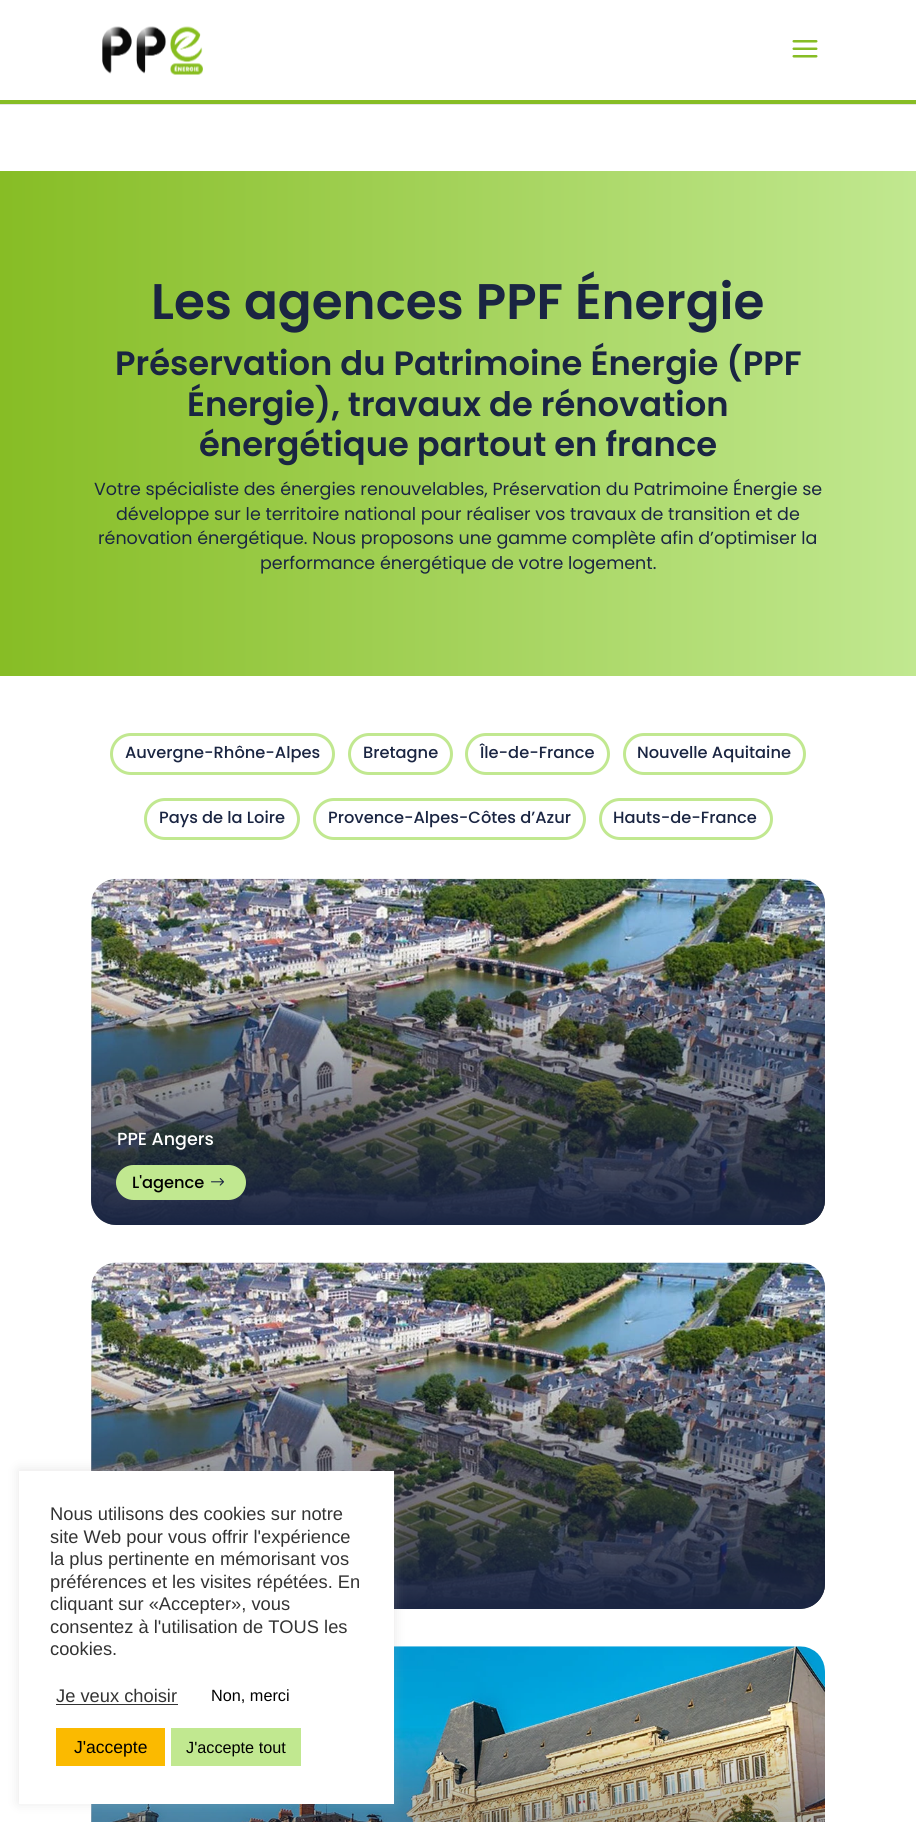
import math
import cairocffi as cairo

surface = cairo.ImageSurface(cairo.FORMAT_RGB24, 916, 1822)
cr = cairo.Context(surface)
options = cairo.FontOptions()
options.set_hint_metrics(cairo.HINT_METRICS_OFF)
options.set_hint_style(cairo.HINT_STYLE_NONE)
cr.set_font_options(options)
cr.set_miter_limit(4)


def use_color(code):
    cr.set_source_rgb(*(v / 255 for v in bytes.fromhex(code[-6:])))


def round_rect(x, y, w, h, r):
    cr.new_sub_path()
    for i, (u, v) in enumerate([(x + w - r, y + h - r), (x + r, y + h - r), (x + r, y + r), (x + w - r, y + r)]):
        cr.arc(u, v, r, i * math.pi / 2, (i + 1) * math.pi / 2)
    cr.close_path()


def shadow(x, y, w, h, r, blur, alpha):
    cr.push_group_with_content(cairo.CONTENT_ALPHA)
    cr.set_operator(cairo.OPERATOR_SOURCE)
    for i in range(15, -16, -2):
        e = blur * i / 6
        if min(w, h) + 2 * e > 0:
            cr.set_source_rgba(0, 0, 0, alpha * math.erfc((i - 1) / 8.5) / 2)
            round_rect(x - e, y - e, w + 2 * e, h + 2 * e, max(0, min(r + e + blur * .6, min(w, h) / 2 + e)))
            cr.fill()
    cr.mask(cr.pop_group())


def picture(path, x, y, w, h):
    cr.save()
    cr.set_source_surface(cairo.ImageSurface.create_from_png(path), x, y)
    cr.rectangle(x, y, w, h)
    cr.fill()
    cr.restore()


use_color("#ffffff")
cr.paint()
use_color("#e6e6e6")
cr.rectangle(0, 104, 916, 1)
cr.fill()
use_color("#87bd25")
cr.rectangle(0, 100, 916, 4)
cr.fill()
picture("img1.png", 102, 26, 101, 49)
picture("img2.png", 792, 40, 26, 18)
gradient = cairo.LinearGradient(0, 424, 916, 424)
gradient.add_color_stop_rgba(0, 0.529, 0.741, 0.145, 1)
gradient.add_color_stop_rgba(1, 0.757, 0.91, 0.565, 1)
cr.set_source(gradient)
cr.rectangle(0, 171, 916, 505)
cr.fill()
cr.select_font_face("Poppins SemiBold")
cr.set_font_size(50)
use_color("#1a2542")
cr.move_to(151, 319)
cr.show_text("Les agences PPF Énergie")
cr.set_font_size(33.75)
cr.move_to(115, 375)
cr.show_text("Préservation du Patrimoine Énergie (PPF")
cr.move_to(187, 416)
cr.show_text("Énergie), travaux de rénovation")
cr.move_to(199, 456)
cr.show_text("énergétique partout en france")
cr.select_font_face("Poppins")
cr.set_font_size(17.5)
cr.move_to(94, 495)
cr.show_text("Votre spécialiste des énergies renouvelables, Préservation du Patrimoine Énergie se")
cr.move_to(116, 520)
cr.show_text("développe sur le territoire national pour réaliser vos travaux de transition et de")
cr.move_to(98, 544)
cr.show_text("rénovation énergétique. Nous proposons une gamme complète afin d’optimiser la")
cr.move_to(260, 569)
cr.show_text("performance énergétique de votre logement.")
round_rect(111.5, 734.5, 222, 39, 19.5)
use_color("#c1e890")
cr.set_line_width(3)
cr.stroke()
cr.select_font_face("Poppins Medium")
cr.set_font_size(16.25)
use_color("#1a2542")
cr.move_to(125, 758)
cr.show_text("Auvergne-Rhône-Alpes")
round_rect(349.5, 734.5, 102, 39, 19.5)
use_color("#c1e890")
cr.stroke()
use_color("#1a2542")
cr.move_to(363, 758)
cr.show_text("Bretagne")
round_rect(466.5, 734.5, 142, 39, 19.5)
use_color("#c1e890")
cr.stroke()
use_color("#1a2542")
cr.move_to(480, 758)
cr.show_text("Île-de-France")
round_rect(624.5, 734.5, 180, 39, 19.5)
use_color("#c1e890")
cr.stroke()
use_color("#1a2542")
cr.move_to(637, 758)
cr.show_text("Nouvelle Aquitaine")
round_rect(145.5, 799.5, 153, 39, 19.5)
use_color("#c1e890")
cr.stroke()
use_color("#1a2542")
cr.move_to(159, 823)
cr.show_text("Pays de la Loire")
round_rect(314.5, 799.5, 270, 39, 19.5)
use_color("#c1e890")
cr.stroke()
use_color("#1a2542")
cr.move_to(328, 823)
cr.show_text("Provence-Alpes-Côtes d’Azur")
round_rect(600.5, 799.5, 171, 39, 19.5)
use_color("#c1e890")
cr.stroke()
use_color("#1a2542")
cr.move_to(613, 823)
cr.show_text("Hauts-de-France")
picture("img3.png", 91, 878, 734, 347)
gradient = cairo.LinearGradient(458, 879, 458, 1225)
gradient.add_color_stop_rgba(0.22, 0.102, 0.145, 0.259, 0)
gradient.add_color_stop_rgba(1, 0.102, 0.145, 0.259, 1)
cr.set_source(gradient)
round_rect(91, 879, 734, 346, 25)
cr.fill()
cr.set_font_size(17.5)
use_color("#ffffff")
cr.move_to(117, 1145)
cr.show_text("PPE Angers")
use_color("#c1e890")
round_rect(116, 1165, 130, 35, 17.5)
cr.fill()
cr.set_font_size(16.25)
use_color("#000000")
cr.move_to(132, 1188)
cr.show_text("L'agence")
picture("img4.png", 211, 1178, 13, 8)
picture("img5.png", 91, 1262, 734, 347)
gradient = cairo.LinearGradient(458, 1263, 458, 1609)
gradient.add_color_stop_rgba(0.22, 0.102, 0.145, 0.259, 0)
gradient.add_color_stop_rgba(1, 0.102, 0.145, 0.259, 1)
cr.set_source(gradient)
round_rect(91, 1263, 734, 346, 25)
cr.fill()
picture("img6.png", 91, 1646, 734, 176)
gradient = cairo.LinearGradient(458, 1646, 458, 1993)
gradient.add_color_stop_rgba(0.22, 0.102, 0.145, 0.259, 0)
gradient.add_color_stop_rgba(1, 0.102, 0.145, 0.259, 1)
cr.set_source(gradient)
cr.rectangle(91, 1728, 734, 94)
cr.fill()
use_color("#acabab")
shadow(19, 1470, 375, 333, 0, 6, 0.3)
use_color("#ffffff")
cr.rectangle(19, 1471, 375, 333)
cr.fill()
cr.select_font_face("Liberation Sans")
cr.set_font_size(18.3)
use_color("#333333")
cr.move_to(50, 1520)
cr.show_text("Nous utilisons des cookies sur notre")
cr.move_to(50, 1543)
cr.show_text("site Web pour vous offrir l'expérience")
cr.move_to(50, 1565)
cr.show_text("la plus pertinente en mémorisant vos")
cr.move_to(50, 1588)
cr.show_text("préférences et les visites répétées. En")
cr.move_to(50, 1610)
cr.show_text("cliquant sur «Accepter», vous")
cr.move_to(50, 1633)
cr.show_text("consentez à l'utilisation de TOUS les")
cr.move_to(50, 1655)
cr.show_text("cookies.")
cr.move_to(56, 1702)
cr.show_text("Je veux choisir")
cr.rectangle(56, 1704, 122, 1)
cr.fill()
cr.set_font_size(16.25)
use_color("#000000")
cr.move_to(211, 1701)
cr.show_text("Non, merci")
use_color("#fbba00")
cr.rectangle(56, 1728, 109, 38)
cr.fill()
cr.set_font_size(17.5)
use_color("#000000")
cr.move_to(74, 1753)
cr.show_text("J'accepte")
use_color("#c1e890")
cr.rectangle(171, 1728, 130, 38)
cr.fill()
cr.set_font_size(16.25)
use_color("#000000")
cr.move_to(186, 1753)
cr.show_text("J'accepte tout")
surface.write_to_png("result.png")
